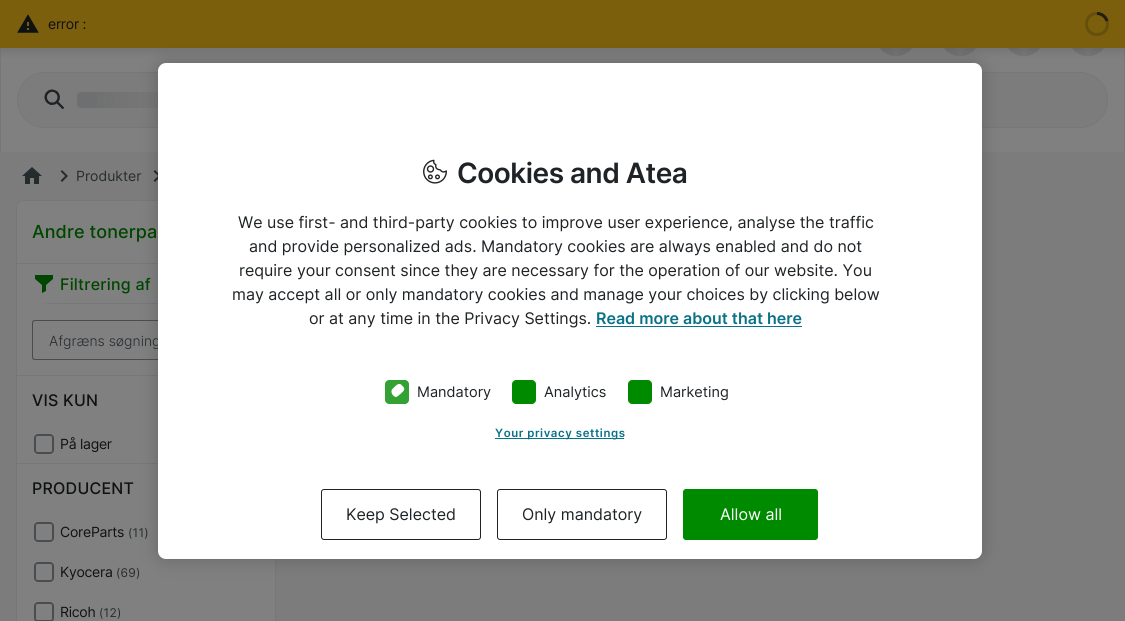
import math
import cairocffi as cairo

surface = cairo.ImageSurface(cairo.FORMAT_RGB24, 1125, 621)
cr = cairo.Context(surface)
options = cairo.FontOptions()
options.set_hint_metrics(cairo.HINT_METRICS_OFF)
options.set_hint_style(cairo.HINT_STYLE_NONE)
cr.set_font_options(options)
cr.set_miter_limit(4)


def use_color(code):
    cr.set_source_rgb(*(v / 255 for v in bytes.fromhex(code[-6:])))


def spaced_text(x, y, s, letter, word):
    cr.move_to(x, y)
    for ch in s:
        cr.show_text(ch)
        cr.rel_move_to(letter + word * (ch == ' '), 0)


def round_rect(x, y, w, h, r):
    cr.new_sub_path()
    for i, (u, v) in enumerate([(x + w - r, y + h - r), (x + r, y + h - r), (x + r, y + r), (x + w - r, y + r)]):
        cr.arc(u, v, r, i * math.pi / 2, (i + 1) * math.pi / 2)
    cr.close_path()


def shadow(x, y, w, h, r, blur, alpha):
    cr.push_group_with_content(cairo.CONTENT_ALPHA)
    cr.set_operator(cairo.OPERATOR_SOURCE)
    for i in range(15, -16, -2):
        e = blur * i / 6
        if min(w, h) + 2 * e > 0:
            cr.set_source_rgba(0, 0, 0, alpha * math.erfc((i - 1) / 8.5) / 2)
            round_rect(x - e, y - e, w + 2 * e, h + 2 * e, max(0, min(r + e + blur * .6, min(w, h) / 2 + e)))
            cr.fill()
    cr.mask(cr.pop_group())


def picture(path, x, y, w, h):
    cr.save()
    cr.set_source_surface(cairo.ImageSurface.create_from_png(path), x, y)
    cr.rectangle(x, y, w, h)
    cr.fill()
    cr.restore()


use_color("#7c7c7c")
cr.paint()
use_color("#777777")
cr.rectangle(1124, 48, 1, 104)
cr.fill()
cr.rectangle(0, 48, 1, 104)
cr.fill()
use_color("#808080")
cr.rectangle(1, 48, 1123, 104)
cr.fill()
use_color("#6e6f70")
cr.arc(896, 36, 20, 0, 2 * math.pi)
cr.fill()
gradient = cairo.LinearGradient(876, 36, 916, 36)
gradient.add_color_stop_rgba(0, 0.467, 0.467, 0.467, 0)
gradient.add_color_stop_rgba(0.5, 0.467, 0.467, 0.467, 1)
gradient.add_color_stop_rgba(1, 0.467, 0.467, 0.467, 0)
cr.set_source(gradient)
cr.arc(896, 36, 20, 0, 2 * math.pi)
cr.fill()
use_color("#6e6f70")
cr.arc(960, 36, 20, 0, 2 * math.pi)
cr.fill()
gradient = cairo.LinearGradient(940, 36, 980, 36)
gradient.add_color_stop_rgba(0, 0.467, 0.467, 0.467, 0)
gradient.add_color_stop_rgba(0.5, 0.467, 0.467, 0.467, 1)
gradient.add_color_stop_rgba(1, 0.467, 0.467, 0.467, 0)
cr.set_source(gradient)
cr.arc(960, 36, 20, 0, 2 * math.pi)
cr.fill()
use_color("#6e6f70")
cr.arc(1024, 36, 20, 0, 2 * math.pi)
cr.fill()
gradient = cairo.LinearGradient(1004, 36, 1044, 36)
gradient.add_color_stop_rgba(0, 0.467, 0.467, 0.467, 0)
gradient.add_color_stop_rgba(0.5, 0.467, 0.467, 0.467, 1)
gradient.add_color_stop_rgba(1, 0.467, 0.467, 0.467, 0)
cr.set_source(gradient)
cr.arc(1024, 36, 20, 0, 2 * math.pi)
cr.fill()
use_color("#6e6f70")
cr.arc(1088, 36, 20, 0, 2 * math.pi)
cr.fill()
gradient = cairo.LinearGradient(1068, 36, 1108, 36)
gradient.add_color_stop_rgba(0, 0.467, 0.467, 0.467, 0)
gradient.add_color_stop_rgba(0.5, 0.467, 0.467, 0.467, 1)
gradient.add_color_stop_rgba(1, 0.467, 0.467, 0.467, 0)
cr.set_source(gradient)
cr.arc(1088, 36, 20, 0, 2 * math.pi)
cr.fill()
use_color("#000000")
shadow(0, 4, 1125, 48, 0, 4, 0.1)
use_color("#7b5f0c")
cr.rectangle(0, 0, 1125, 48)
cr.fill()
picture("img1.png", 17, 14, 22, 19)
cr.select_font_face("Inter")
cr.set_font_size(14)
use_color("#0f1112")
spaced_text(48, 29, "error :", -0.25, 0)
cr.new_path()
cr.move_to(1097, 13.5)
cr.curve_to(1111, 13.5, 1111, 34.5, 1097, 34.5)
cr.curve_to(1083, 34.5, 1083, 13.5, 1097, 13.5)
use_color("#664f0d")
cr.set_line_width(3)
cr.stroke()
cr.new_path()
cr.move_to(1097, 13.5)
cr.curve_to(1101.5, 13.5, 1105.5, 16.5, 1107, 21)
cr.set_source_rgba(0.059, 0.067, 0.071, 0.8)
cr.stroke()
use_color("#7c7c7c")
round_rect(17.5, 72.5, 1090, 55, 27.5)
cr.fill_preserve()
use_color("#777777")
cr.set_line_width(1)
cr.stroke()
picture("img2.png", 44, 89, 21, 21)
use_color("#6e6f70")
round_rect(77, 92, 150, 16, 4)
cr.fill()
gradient = cairo.LinearGradient(77, 100, 227, 100)
gradient.add_color_stop_rgba(0, 0.467, 0.467, 0.467, 0)
gradient.add_color_stop_rgba(0.5, 0.467, 0.467, 0.467, 1)
gradient.add_color_stop_rgba(1, 0.467, 0.467, 0.467, 0)
cr.set_source(gradient)
cr.rectangle(97, 92, 61, 16)
cr.fill()
picture("img3.png", 22, 167, 20, 17)
picture("img4.png", 60, 170, 8, 12)
use_color("#272c2f")
cr.move_to(76, 181)
cr.show_text("Produkter")
picture("img5.png", 153, 170, 5, 12)
use_color("#808080")
round_rect(16.5, 200.5, 259, 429, 7.5)
cr.fill_preserve()
use_color("#777777")
cr.stroke()
cr.save()
cr.rectangle(16, 200, 260, 64)
cr.clip()
cr.set_fill_rule(cairo.FILL_RULE_EVEN_ODD)
cr.new_path()
cr.move_to(-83, 101)
cr.line_to(375, 101)
cr.line_to(375, 363)
cr.line_to(-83, 363)
cr.close_path()
cr.move_to(16, 198)
cr.line_to(276, 198)
cr.line_to(276, 262)
cr.line_to(276, 263)
cr.line_to(16, 263)
cr.line_to(16, 262)
cr.close_path()
cr.fill()
cr.restore()
cr.select_font_face("Inter Medium")
cr.set_font_size(18)
use_color("#004500")
spaced_text(32, 238, "Andre tonerpa", 0.1, 0)
cr.save()
cr.rectangle(16, 264, 260, 40)
cr.clip()
use_color("#777777")
cr.set_fill_rule(cairo.FILL_RULE_EVEN_ODD)
cr.new_path()
cr.move_to(-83, 165)
cr.line_to(375, 165)
cr.line_to(375, 403)
cr.line_to(-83, 403)
cr.close_path()
cr.move_to(16, 262)
cr.line_to(276, 262)
cr.line_to(276, 296)
cr.curve_to(276, 317, 275, 303, 233, 303)
cr.line_to(59, 303)
cr.curve_to(17, 303, 16, 317, 16, 296)
cr.close_path()
cr.fill()
cr.restore()
picture("img6.png", 35, 275, 18, 18)
cr.set_font_size(16)
spaced_text(60, 290, "Filtrering af", 0.25, 0)
cr.save()
cr.rectangle(16, 304, 260, 72)
cr.clip()
use_color("#777777")
cr.set_fill_rule(cairo.FILL_RULE_EVEN_ODD)
cr.new_path()
cr.move_to(-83, 205)
cr.line_to(375, 205)
cr.line_to(375, 475)
cr.line_to(-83, 475)
cr.close_path()
cr.move_to(16, 302)
cr.line_to(276, 302)
cr.line_to(276, 374)
cr.line_to(276, 375)
cr.line_to(16, 375)
cr.line_to(16, 374)
cr.close_path()
cr.fill()
cr.restore()
use_color("#4a4d4f")
cr.set_fill_rule(cairo.FILL_RULE_EVEN_ODD)
cr.new_path()
cr.move_to(35, 320)
cr.line_to(220, 320)
cr.line_to(220, 360)
cr.line_to(35, 360)
cr.curve_to(33, 360, 32, 359, 32, 357)
cr.line_to(32, 323)
cr.curve_to(32, 321, 33, 320, 35, 320)
cr.close_path()
cr.move_to(35, 321)
cr.line_to(220, 321)
cr.line_to(220, 359)
cr.line_to(35, 359)
cr.curve_to(34, 359, 33, 358, 33, 357)
cr.line_to(33, 323)
cr.curve_to(33, 322, 34, 321, 35, 321)
cr.close_path()
cr.fill()
cr.select_font_face("Inter Light")
cr.set_font_size(14)
use_color("#272c2f")
cr.move_to(49, 346)
cr.show_text("Afgræns søgning")
cr.save()
cr.set_fill_rule(cairo.FILL_RULE_WINDING)
cr.rectangle(16, 376, 260, 88)
cr.clip()
use_color("#777777")
cr.set_fill_rule(cairo.FILL_RULE_EVEN_ODD)
cr.new_path()
cr.move_to(-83, 277)
cr.line_to(375, 277)
cr.line_to(375, 563)
cr.line_to(-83, 563)
cr.close_path()
cr.move_to(16, 374)
cr.line_to(276, 374)
cr.line_to(276, 462)
cr.line_to(276, 463)
cr.line_to(16, 463)
cr.line_to(16, 462)
cr.close_path()
cr.fill()
cr.restore()
cr.select_font_face("Inter Medium")
cr.set_font_size(16)
use_color("#0f1112")
spaced_text(32, 406, "VIS KUN", 0.25, 0)
round_rect(35, 435, 18, 18, 3)
use_color("#4a4d4f")
cr.set_line_width(2)
cr.stroke()
use_color("#808080")
round_rect(36, 436, 16, 16, 2)
cr.fill()
cr.select_font_face("Inter")
cr.set_font_size(14)
use_color("#0f1112")
spaced_text(60, 449, "På lager", -0.25, 0)
cr.select_font_face("Inter Medium")
cr.set_font_size(16)
spaced_text(32, 494, "PRODUCENT", 0.25, 0)
round_rect(35, 523, 18, 18, 3)
use_color("#4a4d4f")
cr.stroke()
use_color("#808080")
round_rect(36, 524, 16, 16, 2)
cr.fill()
cr.select_font_face("Inter")
cr.set_font_size(14)
use_color("#0f1112")
spaced_text(60, 537, "CoreParts", -0.25, 0)
cr.set_font_size(12)
use_color("#272c2f")
spaced_text(128, 537, "(11)", 0.25, 0)
round_rect(35, 563, 18, 18, 3)
use_color("#4a4d4f")
cr.stroke()
use_color("#808080")
round_rect(36, 564, 16, 16, 2)
cr.fill()
cr.set_font_size(14)
use_color("#0f1112")
spaced_text(60, 577, "Kyocera", -0.25, 0)
cr.set_font_size(12)
use_color("#272c2f")
spaced_text(116, 577, "(69)", 0.25, 0)
round_rect(35, 603, 18, 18, 3)
use_color("#4a4d4f")
cr.stroke()
use_color("#808080")
round_rect(36, 604, 16, 16, 2)
cr.fill()
cr.set_font_size(14)
use_color("#0f1112")
spaced_text(60, 617, "Ricoh", -0.25, 0)
cr.set_font_size(12)
use_color("#272c2f")
spaced_text(99, 617, "(12)", 0.25, 0)
use_color("#000000")
shadow(158, 63, 824, 496, 8, 9, 0.2)
use_color("#ffffff")
round_rect(158, 63, 824, 496, 8)
cr.fill()
picture("img7.png", 423, 159, 24, 25)
cr.select_font_face("Inter SemiBold")
cr.set_font_size(28)
use_color("#1f2326")
spaced_text(457, 183, "Cookies and Atea", -0.5, 0)
cr.select_font_face("Inter")
cr.set_font_size(16)
cr.move_to(238, 228)
cr.show_text("We use first- and third-party cookies to improve user experience, analyse the traffic")
cr.move_to(249, 252)
cr.show_text("and provide personalized ads. Mandatory cookies are always enabled and do not")
cr.move_to(239, 276)
cr.show_text("require your consent since they are necessary for the operation of our website. You")
cr.move_to(232, 300)
cr.show_text("may accept all or only mandatory cookies and manage your choices by clicking below")
cr.move_to(309, 324)
cr.show_text("or at any time in the Privacy Settings.")
cr.select_font_face("Inter SemiBold")
use_color("#097288")
cr.move_to(596, 324)
cr.show_text("Read more about that here")
cr.rectangle(596, 326, 206, 1)
cr.fill()
use_color("#33a133")
cr.set_fill_rule(cairo.FILL_RULE_WINDING)
cr.new_path()
cr.move_to(389, 380)
cr.line_to(405, 380)
cr.curve_to(407, 380, 409, 382, 409, 384)
cr.line_to(409, 400)
cr.curve_to(409, 402, 407, 404, 405, 404)
cr.line_to(389, 404)
cr.curve_to(387, 404, 385, 402, 385, 400)
cr.line_to(385, 384)
cr.curve_to(385, 382, 387, 380, 389, 380)
cr.close_path()
cr.fill()
use_color("#ffffff")
cr.new_path()
cr.move_to(392, 389.5)
cr.curve_to(393.5, 388, 398, 382, 401, 384.5)
cr.line_to(403.5, 387)
cr.curve_to(404, 388, 404.5, 389, 404, 390)
cr.curve_to(404, 391, 397.5, 397, 396, 397)
cr.curve_to(393.5, 397, 390, 392.5, 392, 389.5)
cr.close_path()
cr.fill()
cr.select_font_face("Inter")
cr.set_font_size(14.5)
use_color("#1f2326")
cr.move_to(417, 397)
cr.show_text("Mandatory")
use_color("#008a00")
cr.new_path()
cr.move_to(516, 380)
cr.line_to(532, 380)
cr.curve_to(534, 380, 536, 382, 536, 384)
cr.line_to(536, 400)
cr.curve_to(536, 402, 534, 404, 532, 404)
cr.line_to(516, 404)
cr.curve_to(514, 404, 512, 402, 512, 400)
cr.line_to(512, 384)
cr.curve_to(512, 382, 514, 380, 516, 380)
cr.close_path()
cr.fill()
use_color("#1f2326")
cr.move_to(544, 397)
cr.show_text("Analytics")
use_color("#008a00")
cr.new_path()
cr.move_to(632, 380)
cr.line_to(648, 380)
cr.curve_to(650, 380, 652, 382, 652, 384)
cr.line_to(652, 400)
cr.curve_to(652, 402, 650, 404, 648, 404)
cr.line_to(632, 404)
cr.curve_to(630, 404, 628, 402, 628, 400)
cr.line_to(628, 384)
cr.curve_to(628, 382, 630, 380, 632, 380)
cr.close_path()
cr.fill()
use_color("#1f2326")
cr.move_to(660, 397)
cr.show_text("Marketing")
use_color("#097288")
cr.rectangle(495, 438, 129, 1)
cr.fill()
cr.select_font_face("Inter SemiBold")
cr.set_font_size(11.4)
spaced_text(495, 437, "Your privacy settings", 0.6, 0)
round_rect(321.5, 489.5, 159, 50, 2.5)
use_color("#1f2325")
cr.set_line_width(1)
cr.stroke()
cr.select_font_face("Inter")
cr.set_font_size(16)
use_color("#1f2326")
cr.move_to(346, 520)
cr.show_text("Keep Selected")
round_rect(497.5, 489.5, 169, 50, 2.5)
use_color("#1f2325")
cr.stroke()
use_color("#1f2326")
cr.move_to(522, 520)
cr.show_text("Only mandatory")
use_color("#008a00")
round_rect(683.5, 489.5, 134, 50, 2.5)
cr.fill_preserve()
cr.stroke()
use_color("#ffffff")
cr.move_to(720, 520)
cr.show_text("Allow all")
surface.write_to_png("result.png")
